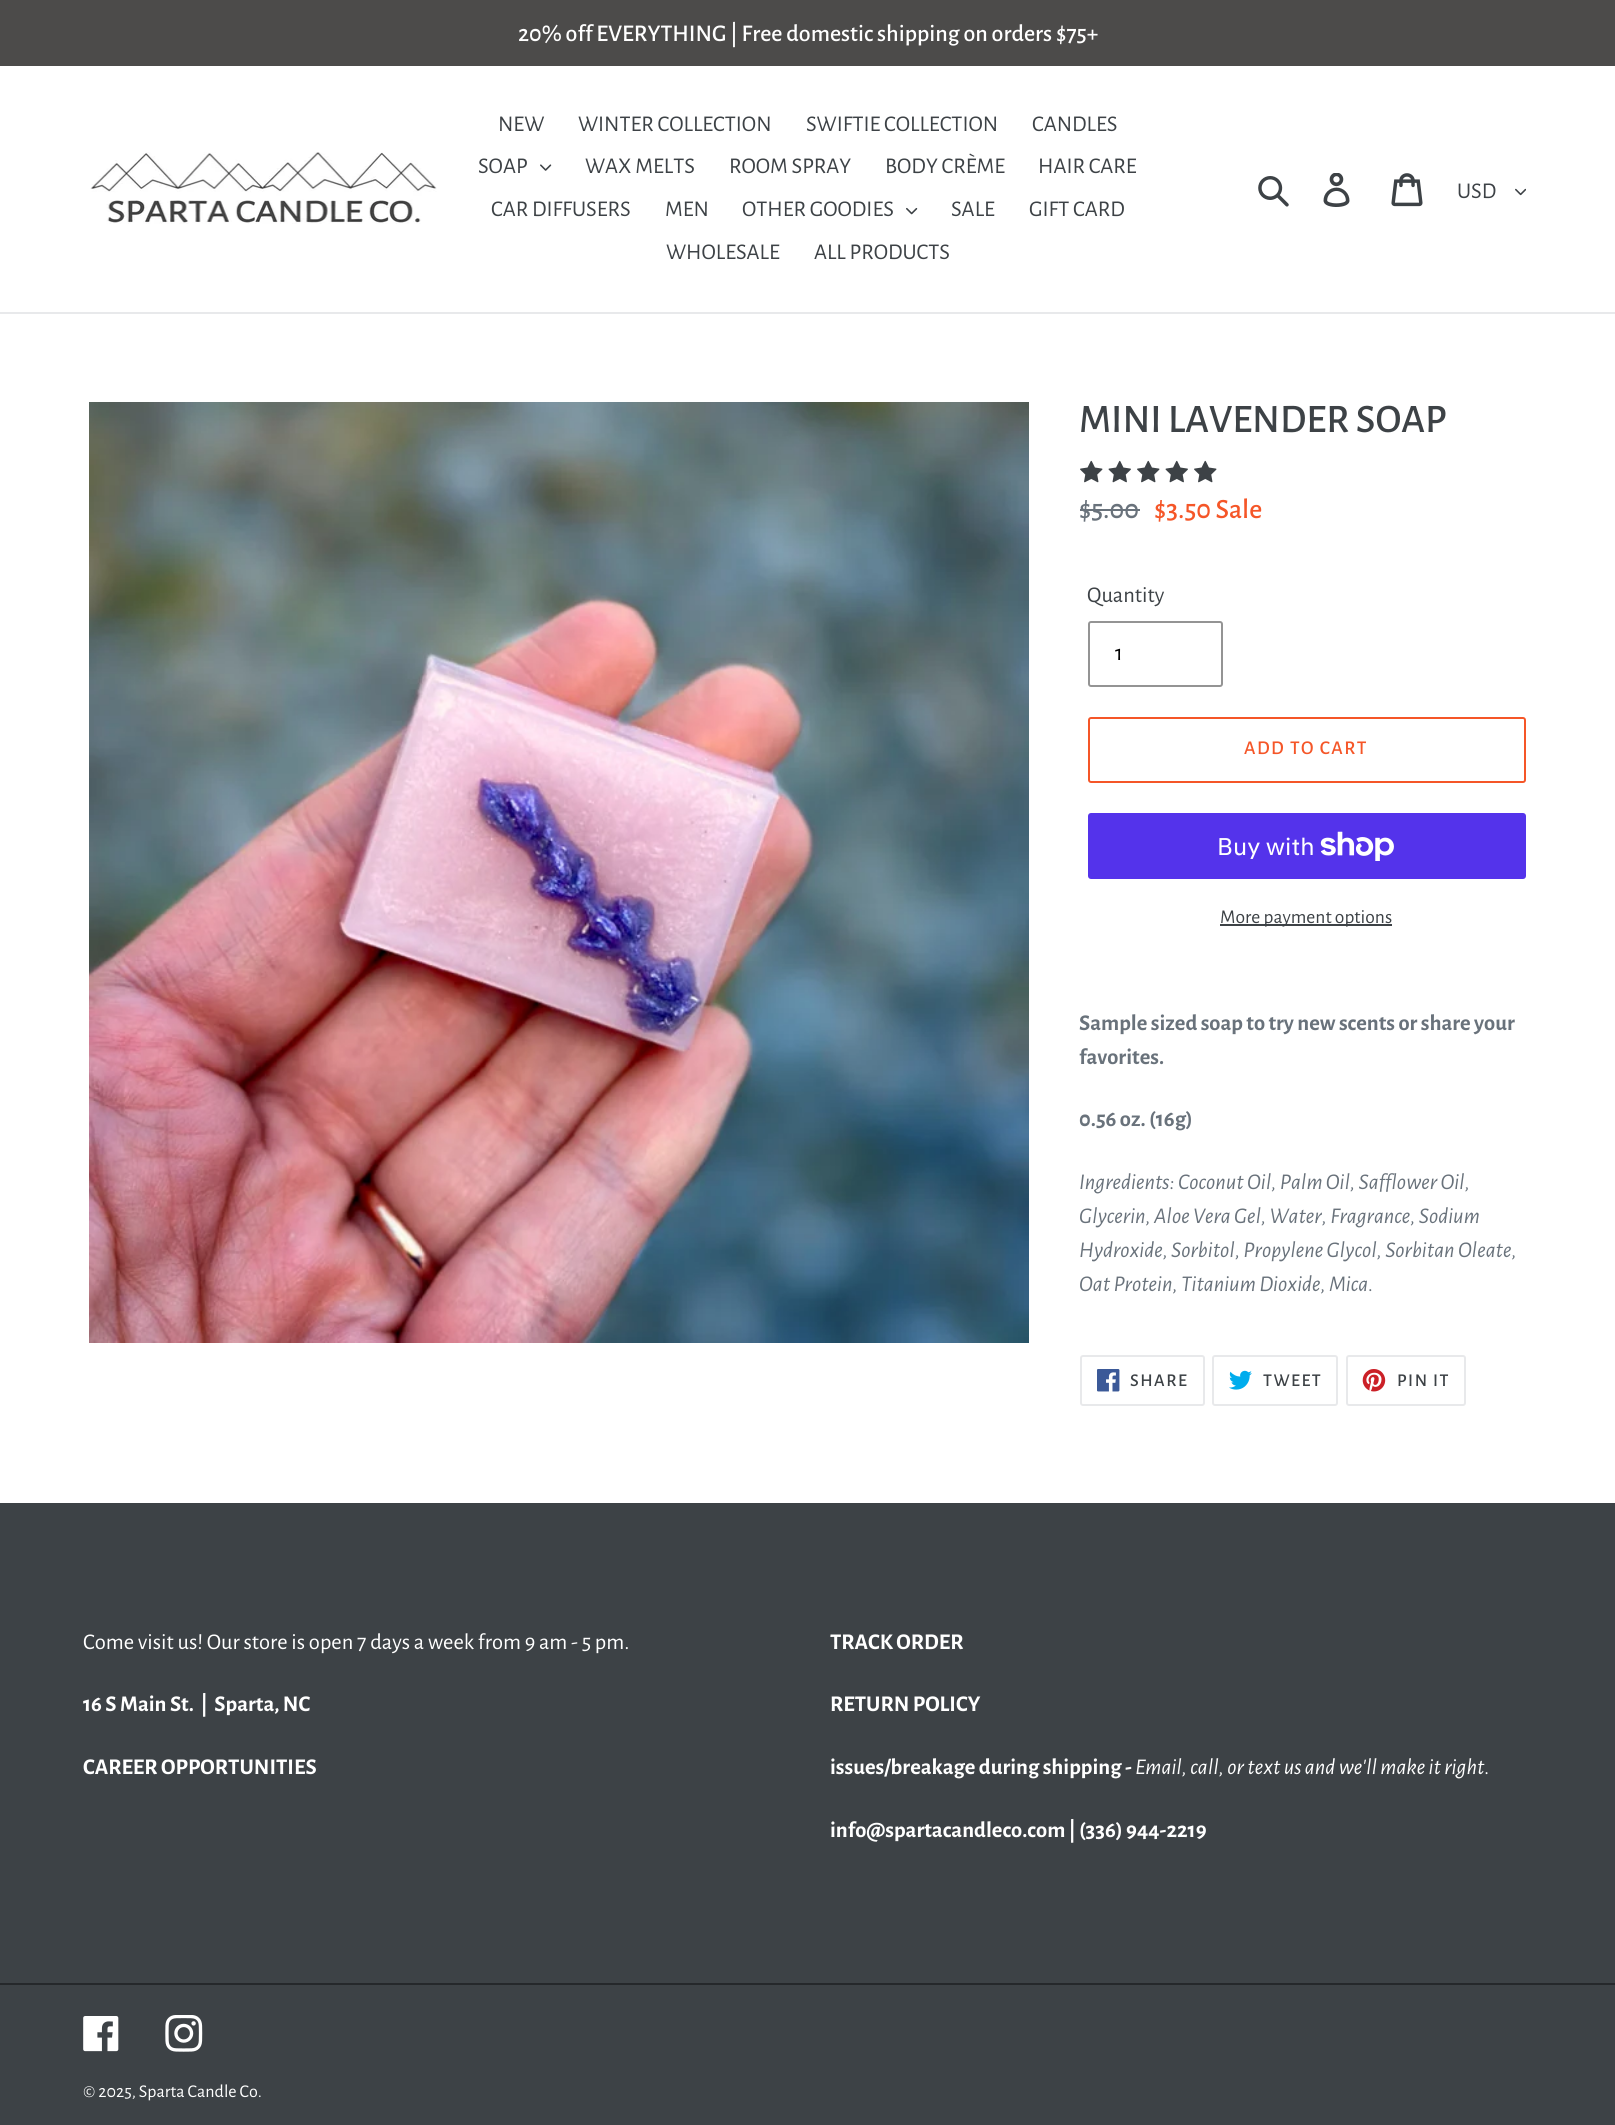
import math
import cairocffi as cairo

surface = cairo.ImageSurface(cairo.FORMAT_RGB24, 1615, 2125)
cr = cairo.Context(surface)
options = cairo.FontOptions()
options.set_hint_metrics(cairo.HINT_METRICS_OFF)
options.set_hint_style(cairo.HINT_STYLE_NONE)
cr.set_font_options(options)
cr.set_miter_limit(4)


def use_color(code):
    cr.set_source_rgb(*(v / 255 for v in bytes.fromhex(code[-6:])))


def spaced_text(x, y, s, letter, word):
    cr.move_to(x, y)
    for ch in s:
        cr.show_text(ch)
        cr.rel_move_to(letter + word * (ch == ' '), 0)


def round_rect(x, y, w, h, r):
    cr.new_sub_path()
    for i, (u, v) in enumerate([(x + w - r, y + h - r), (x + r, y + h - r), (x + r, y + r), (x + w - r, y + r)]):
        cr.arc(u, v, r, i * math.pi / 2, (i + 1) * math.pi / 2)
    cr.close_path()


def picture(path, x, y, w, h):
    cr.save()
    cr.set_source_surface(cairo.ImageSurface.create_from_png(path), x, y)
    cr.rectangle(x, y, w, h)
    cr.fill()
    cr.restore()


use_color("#ffffff")
cr.paint()
use_color("#4c4b4a")
cr.rectangle(0, 0, 1615, 66)
cr.fill()
cr.select_font_face("Alegreya Sans Medium")
cr.set_font_size(24)
use_color("#ffffff")
cr.move_to(518, 41)
cr.show_text("20% off EVERYTHING | Free domestic shipping on orders $75+")
use_color("#e8e9eb")
cr.rectangle(0, 312, 1615, 2)
cr.fill()
picture("img1.png", 90, 152, 347, 72)
cr.select_font_face("Alegreya Sans")
cr.set_font_size(22.5)
use_color("#3d4246")
cr.move_to(498, 131)
cr.show_text("NEW")
cr.move_to(578, 131)
cr.show_text("WINTER COLLECTION")
cr.move_to(806, 131)
cr.show_text("SWIFTIE COLLECTION")
cr.move_to(1032, 131)
cr.show_text("CANDLES")
cr.move_to(478, 173)
cr.show_text("SOAP")
picture("img2.png", 540, 164, 12, 7)
cr.move_to(585, 173)
cr.show_text("WAX MELTS")
cr.move_to(729, 173)
cr.show_text("ROOM SPRAY")
cr.move_to(885, 173)
cr.show_text("BODY CRÈME")
cr.move_to(1038, 173)
cr.show_text("HAIR CARE")
cr.move_to(491, 216)
cr.show_text("CAR DIFFUSERS")
cr.move_to(665, 216)
cr.show_text("MEN")
cr.move_to(742, 216)
cr.show_text("OTHER GOODIES")
picture("img3.png", 906, 207, 12, 8)
cr.move_to(951, 216)
cr.show_text("SALE")
cr.move_to(1029, 216)
cr.show_text("GIFT CARD")
cr.move_to(666, 259)
cr.show_text("WHOLESALE")
cr.move_to(814, 259)
cr.show_text("ALL PRODUCTS")
picture("img4.png", 1258, 176, 31, 31)
picture("img5.png", 1323, 173, 27, 34)
picture("img6.png", 1391, 173, 32, 34)
cr.move_to(1457, 198)
cr.show_text("USD")
picture("img7.png", 1515, 188, 11, 8)
picture("img8.png", 89, 402, 940, 941)
cr.select_font_face("Alegreya Sans Medium")
cr.set_font_size(40.5)
cr.move_to(1079, 432)
cr.show_text("MINI LAVENDER SOAP")
picture("img9.png", 1080, 460, 23, 23)
picture("img10.png", 1108, 460, 23, 23)
picture("img9.png", 1137, 460, 23, 23)
picture("img10.png", 1165, 460, 23, 23)
picture("img9.png", 1194, 460, 23, 23)
cr.set_font_size(28)
use_color("#69727b")
cr.move_to(1079, 518)
cr.show_text("$5.00")
cr.rectangle(1080, 509, 60, 2)
cr.fill()
use_color("#f55628")
cr.move_to(1154, 518)
cr.show_text("$3.50 Sale")
cr.select_font_face("Alegreya Sans")
cr.set_font_size(22.5)
use_color("#3d4246")
cr.move_to(1087, 602)
cr.show_text("Quantity")
round_rect(1089, 622, 133, 64, 2)
use_color("#949494")
cr.stroke()
use_color("#000000")
cr.move_to(1115, 660)
cr.show_text("1")
round_rect(1089, 718, 436, 64, 2)
use_color("#f55628")
cr.stroke()
cr.select_font_face("Alegreya Sans Medium")
cr.set_font_size(19.5)
spaced_text(1244, 754, "ADD TO CART", 1.5, 0)
use_color("#5433eb")
round_rect(1088, 813, 438, 66, 3)
cr.fill()
cr.select_font_face("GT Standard")
cr.set_font_size(24)
use_color("#ffffff")
cr.move_to(1217, 855)
cr.show_text("Buy with")
picture("img11.png", 1320, 831, 74, 30)
use_color("#3d4246")
cr.rectangle(1220, 924, 172, 2)
cr.fill()
cr.select_font_face("Alegreya Sans")
cr.set_font_size(19.5)
cr.move_to(1220, 923)
cr.show_text("More payment options")
cr.select_font_face("Alegreya Sans", cairo.FONT_SLANT_NORMAL, cairo.FONT_WEIGHT_BOLD)
cr.set_font_size(22.5)
use_color("#69727b")
cr.move_to(1079, 1030)
cr.show_text("Sample sized soap to try new scents or share your")
cr.move_to(1079, 1064)
cr.show_text("favorites.")
cr.move_to(1079, 1126)
cr.show_text("0.56 oz. (16g)")
cr.select_font_face("Alegreya Sans", cairo.FONT_SLANT_ITALIC)
cr.move_to(1079, 1189)
cr.show_text("Ingredients: Coconut Oil, Palm Oil, Safflower Oil,")
cr.move_to(1079, 1223)
cr.show_text("Glycerin, Aloe Vera Gel, Water, Fragrance, Sodium")
cr.move_to(1079, 1257)
cr.show_text("Hydroxide, Sorbitol, Propylene Glycol, Sorbitan Oleate,")
cr.move_to(1079, 1291)
cr.show_text("Oat Protein, Titanium Dioxide, Mica.")
round_rect(1081, 1356, 123, 49, 2)
use_color("#e8e9eb")
cr.stroke()
picture("img12.png", 1097, 1369, 23, 23)
cr.select_font_face("Alegreya Sans Medium")
cr.set_font_size(18)
use_color("#3d4246")
spaced_text(1130, 1386, "SHARE", 1.5, 0)
round_rect(1213, 1356, 124, 49, 2)
use_color("#e8e9eb")
cr.stroke()
picture("img13.png", 1229, 1370, 23, 20)
use_color("#3d4246")
spaced_text(1263, 1386, "TWEET", 1.5, 0)
round_rect(1347, 1356, 118, 49, 2)
use_color("#e8e9eb")
cr.stroke()
picture("img14.png", 1362, 1369, 24, 23)
use_color("#3d4246")
spaced_text(1397, 1386, "PIN IT", 1.5, 0)
cr.rectangle(0, 1503, 1615, 622)
cr.fill()
cr.select_font_face("Alegreya Sans")
cr.set_font_size(22.5)
use_color("#ffffff")
cr.move_to(83, 1649)
cr.show_text("Come visit us! Our store is open 7 days a week from 9 am - 5 pm.")
cr.select_font_face("Alegreya Sans", cairo.FONT_SLANT_NORMAL, cairo.FONT_WEIGHT_BOLD)
cr.move_to(83, 1711)
cr.show_text("16 S Main St.  |  Sparta, NC")
cr.move_to(83, 1774)
cr.show_text("CAREER OPPORTUNITIES")
cr.move_to(830, 1649)
cr.show_text("TRACK ORDER")
cr.move_to(830, 1711)
cr.show_text("RETURN POLICY")
cr.move_to(830, 1774)
cr.show_text("issues/breakage during shipping -")
cr.select_font_face("Alegreya Sans", cairo.FONT_SLANT_ITALIC)
cr.move_to(1135, 1774)
cr.show_text("Email, call, or text us and we'll make it right.")
cr.select_font_face("Alegreya Sans", cairo.FONT_SLANT_NORMAL, cairo.FONT_WEIGHT_BOLD)
cr.move_to(830, 1837)
cr.show_text("info@spartacandleco.com | (336) 944-2219")
use_color("#25282b")
cr.rectangle(0, 1983, 1615, 2)
cr.fill()
picture("img15.png", 83, 2016, 36, 36)
picture("img16.png", 165, 2015, 38, 37)
cr.select_font_face("Alegreya Sans")
cr.set_font_size(18)
use_color("#ffffff")
cr.move_to(83, 2097)
cr.show_text("© 2025, Sparta Candle Co.")
surface.write_to_png("result.png")
